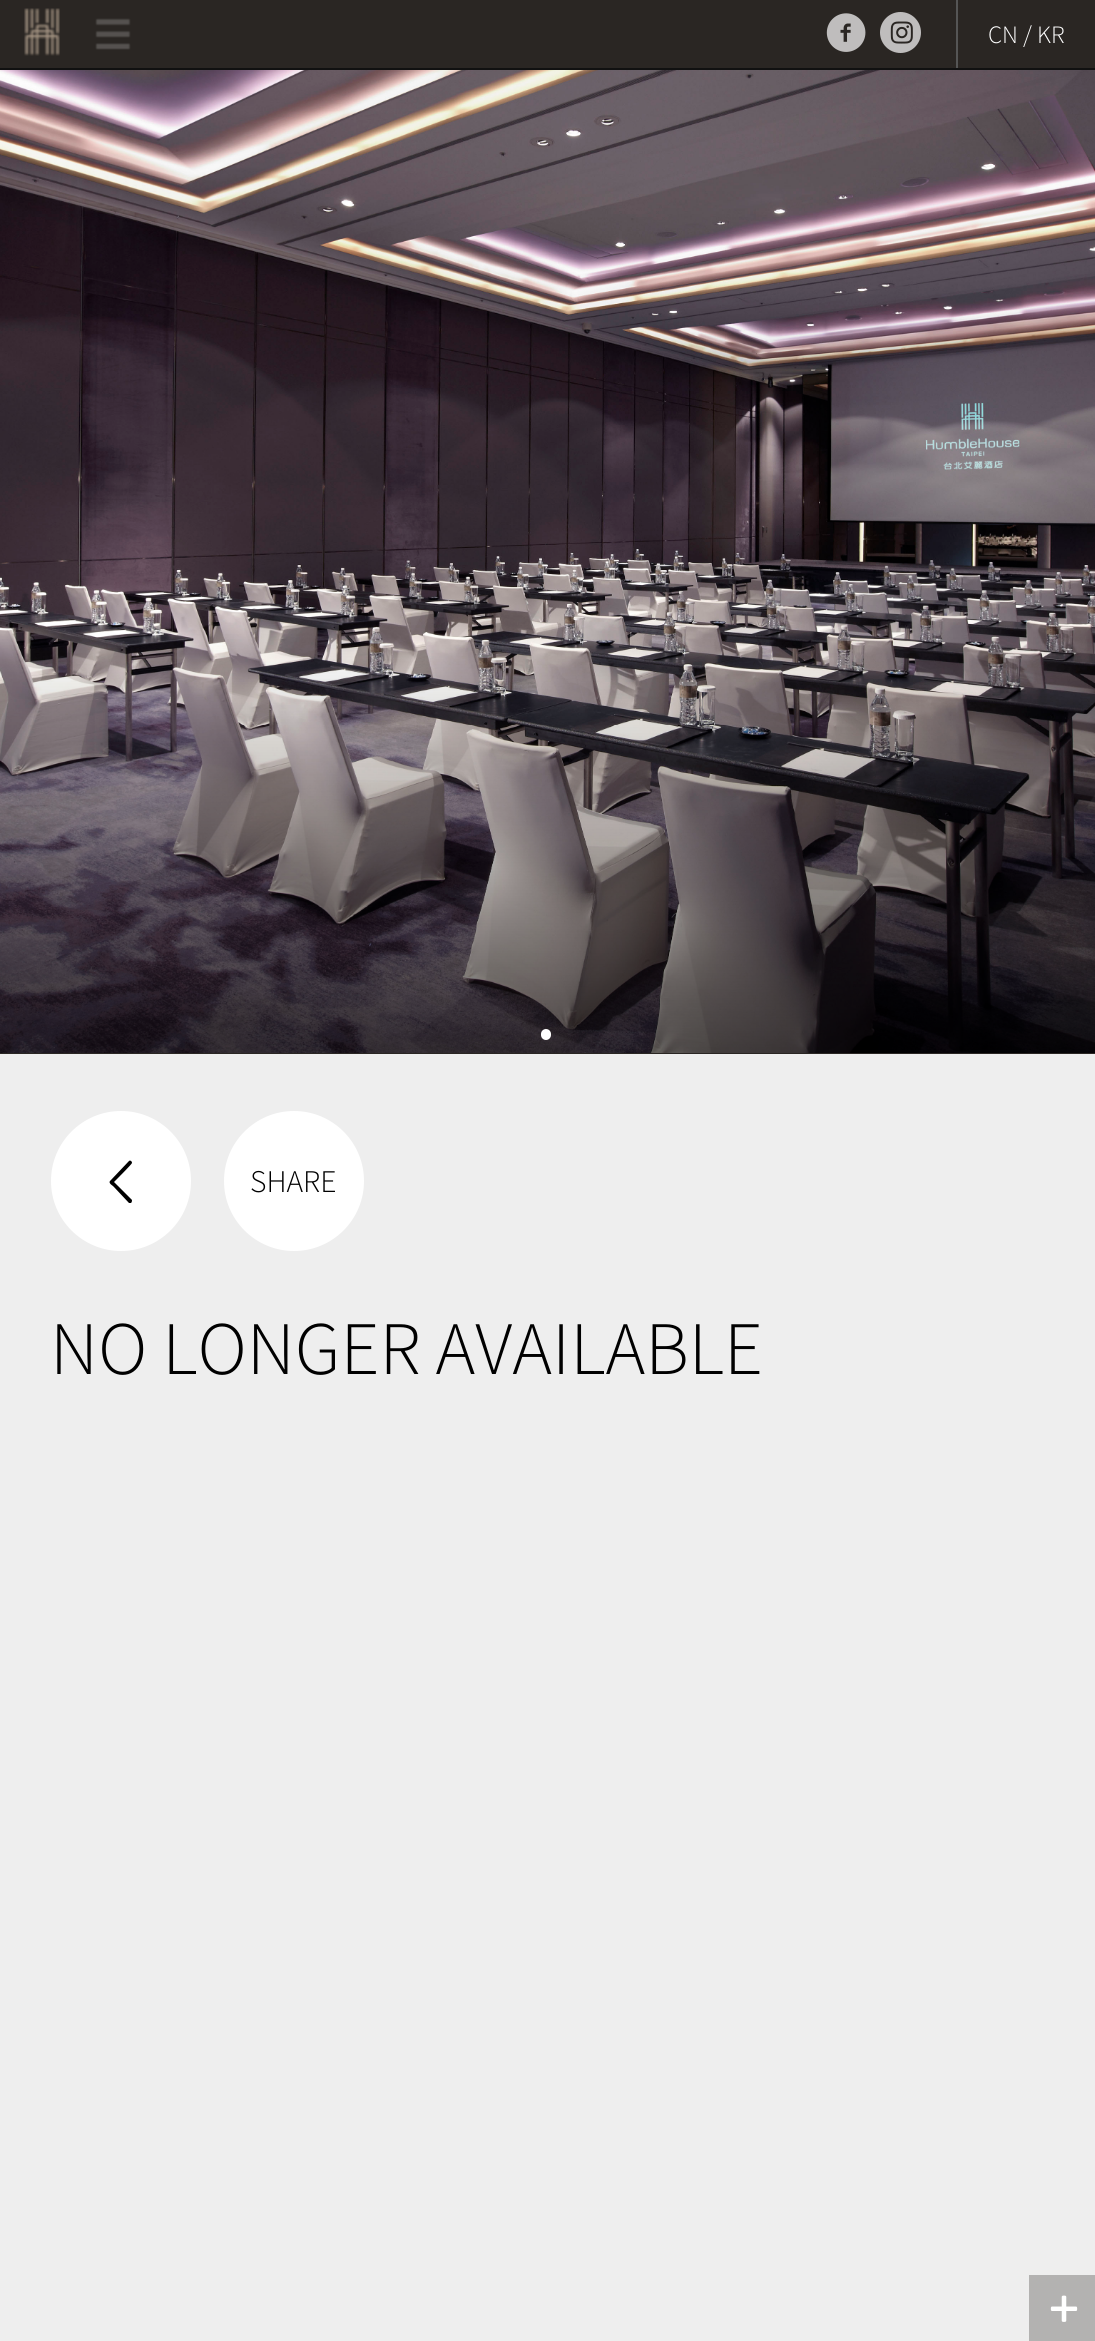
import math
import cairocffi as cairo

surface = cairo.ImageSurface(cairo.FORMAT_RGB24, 1095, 2341)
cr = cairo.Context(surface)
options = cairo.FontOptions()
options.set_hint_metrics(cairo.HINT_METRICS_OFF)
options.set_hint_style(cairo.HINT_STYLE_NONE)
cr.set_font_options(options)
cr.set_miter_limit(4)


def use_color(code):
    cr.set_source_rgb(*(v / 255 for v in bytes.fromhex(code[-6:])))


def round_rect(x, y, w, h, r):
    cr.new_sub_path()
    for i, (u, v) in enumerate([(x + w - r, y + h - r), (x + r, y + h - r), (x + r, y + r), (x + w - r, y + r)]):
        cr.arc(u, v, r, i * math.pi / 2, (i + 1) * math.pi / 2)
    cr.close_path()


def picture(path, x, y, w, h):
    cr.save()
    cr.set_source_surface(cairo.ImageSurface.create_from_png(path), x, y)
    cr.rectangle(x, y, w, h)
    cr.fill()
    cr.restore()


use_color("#2a2623")
cr.paint()
use_color("#111111")
cr.rectangle(0, 68, 1095, 2)
cr.fill()
picture("img1.png", 24, 8, 36, 48)
picture("img2.png", 95, 18, 36, 32)
picture("img3.png", 826, 13, 40, 39)
use_color("#bfbdbd")
cr.arc(900.5, 32.5, 20.5, 0, 2 * math.pi)
cr.fill()
picture("img4.png", 890, 21, 23, 23)
use_color("#555555")
cr.rectangle(956, 0, 2, 68)
cr.fill()
cr.select_font_face("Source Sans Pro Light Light")
cr.set_font_size(25)
use_color("#ffffff")
cr.move_to(988, 43)
cr.show_text("CN / KR")
picture("img5.png", 0, 70, 1095, 983)
round_rect(541, 1029, 10, 11, 5)
cr.fill()
use_color("#eeeeee")
cr.rectangle(0, 1054, 1095, 1287)
cr.fill()
use_color("#ffffff")
cr.arc(121, 1181, 70, 0, 2 * math.pi)
cr.fill()
use_color("#000000")
cr.new_path()
cr.move_to(132, 1200)
cr.curve_to(132, 1201, 132, 1202, 131, 1203)
cr.line_to(129, 1203)
cr.line_to(113, 1186)
cr.curve_to(113, 1186, 108, 1183, 110, 1181)
cr.line_to(129, 1161)
cr.curve_to(130, 1160, 132, 1161, 132, 1163)
cr.curve_to(132, 1164, 116, 1180, 114, 1182)
cr.close_path()
cr.fill()
use_color("#ffffff")
cr.arc(294, 1181, 70, 0, 2 * math.pi)
cr.fill()
cr.set_font_size(31.5)
use_color("#000000")
cr.move_to(250, 1192)
cr.show_text("SHARE")
cr.set_font_size(75.5)
cr.move_to(50, 1374)
cr.show_text("NO LONGER AVAILABLE")
use_color("#b3b2b1")
cr.rectangle(1029, 2275, 66, 66)
cr.fill()
picture("img6.png", 1050, 2295, 28, 27)
surface.write_to_png("result.png")
